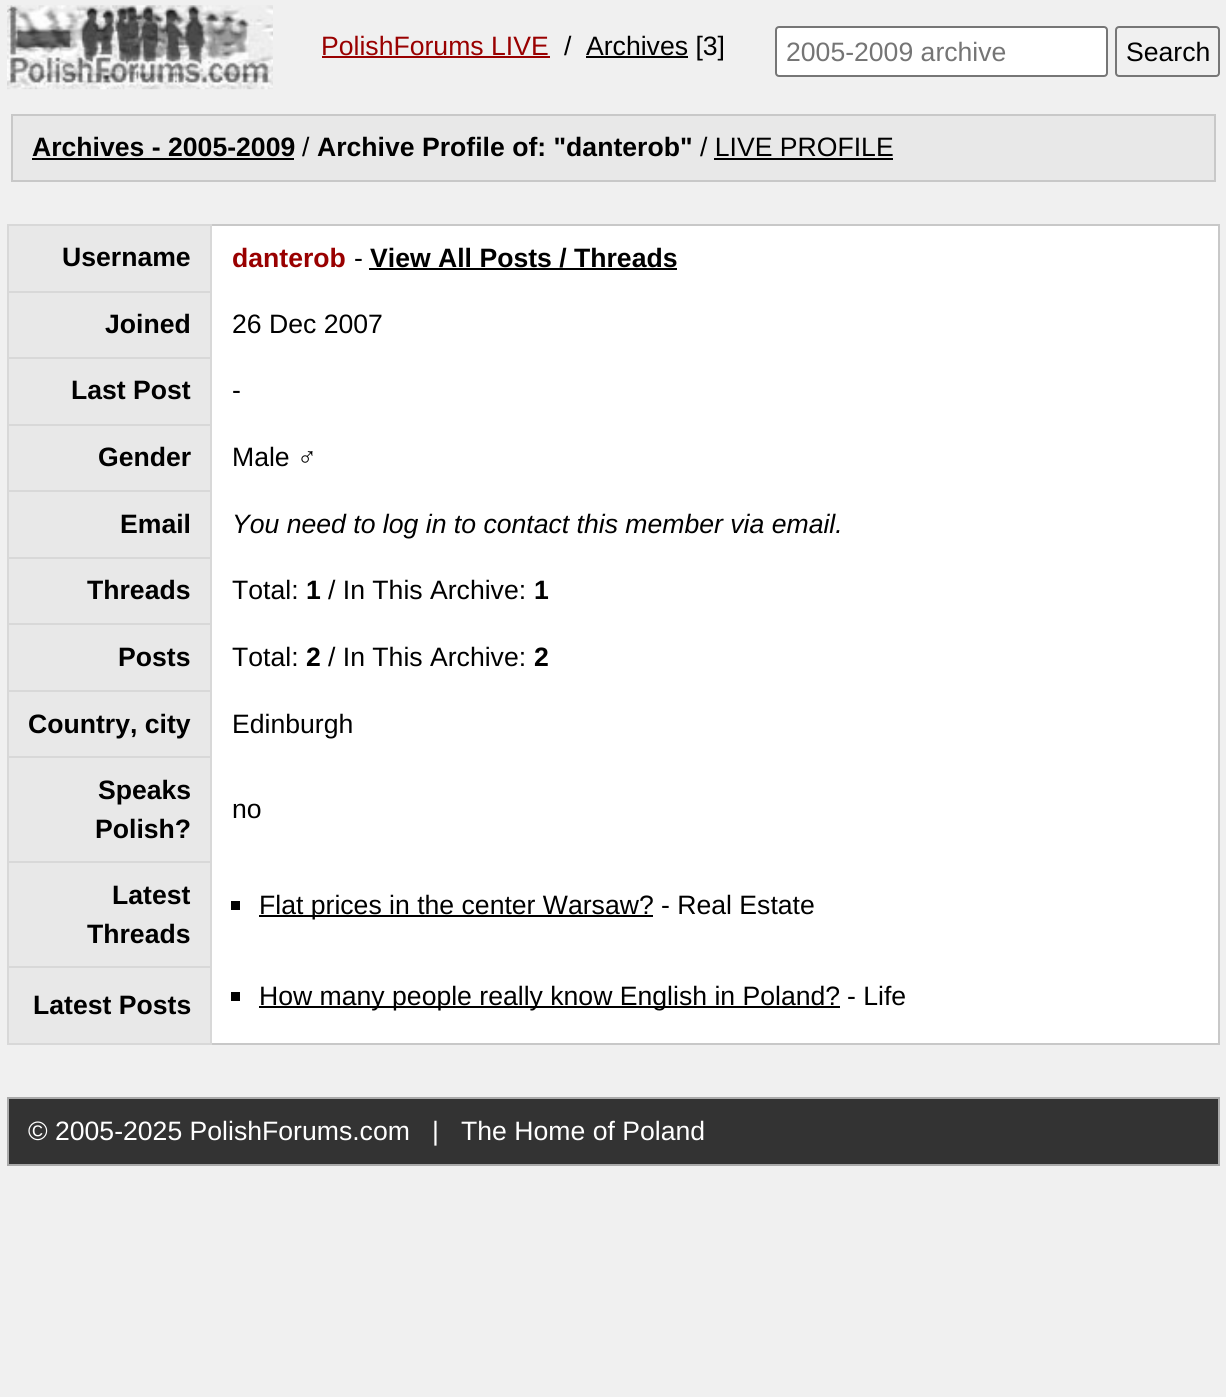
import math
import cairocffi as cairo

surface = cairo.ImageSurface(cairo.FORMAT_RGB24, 1226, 1397)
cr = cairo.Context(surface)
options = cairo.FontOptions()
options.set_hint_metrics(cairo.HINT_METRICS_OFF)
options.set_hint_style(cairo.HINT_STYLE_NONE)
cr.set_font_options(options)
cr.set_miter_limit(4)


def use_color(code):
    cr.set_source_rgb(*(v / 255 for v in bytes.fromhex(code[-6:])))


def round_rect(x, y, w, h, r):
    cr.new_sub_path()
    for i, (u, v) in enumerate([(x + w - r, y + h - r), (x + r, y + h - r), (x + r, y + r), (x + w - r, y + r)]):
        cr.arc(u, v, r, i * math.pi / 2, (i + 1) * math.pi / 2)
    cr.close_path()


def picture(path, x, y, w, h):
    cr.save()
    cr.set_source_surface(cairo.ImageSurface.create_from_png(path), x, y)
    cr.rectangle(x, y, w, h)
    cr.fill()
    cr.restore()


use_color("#f0f0f0")
cr.paint()
picture("img1.png", 7, 5, 266, 85)
cr.select_font_face("Liberation Sans")
cr.set_font_size(26.6)
use_color("#990000")
cr.move_to(321, 55)
cr.show_text("PolishForums LIVE")
cr.rectangle(322, 56, 228, 2)
cr.fill()
use_color("#000000")
cr.move_to(564, 55)
cr.show_text("/")
cr.rectangle(586, 56, 102, 2)
cr.fill()
cr.move_to(586, 55)
cr.show_text("Archives [3]")
use_color("#ffffff")
round_rect(776, 27, 331, 49, 3)
cr.fill_preserve()
use_color("#767676")
cr.stroke()
use_color("#757575")
cr.move_to(786, 61)
cr.show_text("2005-2009 archive")
round_rect(1116, 27, 103, 49, 3)
use_color("#767676")
cr.stroke()
use_color("#000000")
cr.move_to(1126, 61)
cr.show_text("Search")
use_color("#e8e8e8")
cr.rectangle(12, 115, 1203, 66)
cr.fill_preserve()
use_color("#c8c8c8")
cr.stroke()
cr.select_font_face("Liberation Sans", cairo.FONT_SLANT_NORMAL, cairo.FONT_WEIGHT_BOLD)
use_color("#000000")
cr.move_to(32, 156)
cr.show_text("Archives - 2005-2009")
cr.rectangle(32, 158, 262, 2)
cr.fill()
cr.select_font_face("Liberation Sans")
cr.move_to(302, 156)
cr.show_text("/")
cr.select_font_face("Liberation Sans", cairo.FONT_SLANT_NORMAL, cairo.FONT_WEIGHT_BOLD)
cr.move_to(317, 156)
cr.show_text("Archive Profile of: \"danterob\"")
cr.select_font_face("Liberation Sans")
cr.move_to(700, 156)
cr.show_text("/ LIVE PROFILE")
cr.rectangle(714, 158, 179, 2)
cr.fill()
use_color("#e8e8e8")
cr.rectangle(9, 226, 201, 817)
cr.fill()
use_color("#c8c8c8")
cr.rectangle(212, 224, 1008, 2)
cr.fill()
cr.rectangle(1218, 224, 2, 821)
cr.fill()
cr.rectangle(212, 1043, 1008, 2)
cr.fill()
use_color("#d8d8d8")
cr.rectangle(7, 224, 205, 2)
cr.fill()
cr.rectangle(7, 291, 205, 2)
cr.fill()
cr.rectangle(7, 357, 205, 2)
cr.fill()
cr.rectangle(7, 424, 205, 2)
cr.fill()
cr.rectangle(7, 490, 205, 2)
cr.fill()
cr.rectangle(7, 557, 205, 2)
cr.fill()
cr.rectangle(7, 623, 205, 2)
cr.fill()
cr.rectangle(7, 690, 205, 2)
cr.fill()
cr.rectangle(7, 756, 205, 2)
cr.fill()
cr.rectangle(7, 861, 205, 2)
cr.fill()
cr.rectangle(7, 966, 205, 2)
cr.fill()
cr.rectangle(210, 966, 2, 79)
cr.fill()
cr.rectangle(210, 861, 2, 107)
cr.fill()
cr.rectangle(210, 756, 2, 107)
cr.fill()
cr.rectangle(210, 690, 2, 68)
cr.fill()
cr.rectangle(210, 623, 2, 68)
cr.fill()
cr.rectangle(210, 557, 2, 68)
cr.fill()
cr.rectangle(210, 490, 2, 68)
cr.fill()
cr.rectangle(210, 424, 2, 68)
cr.fill()
cr.rectangle(210, 357, 2, 68)
cr.fill()
cr.rectangle(210, 291, 2, 68)
cr.fill()
cr.rectangle(210, 224, 2, 68)
cr.fill()
cr.rectangle(7, 1043, 205, 2)
cr.fill()
cr.rectangle(7, 966, 2, 79)
cr.fill()
cr.rectangle(7, 861, 2, 107)
cr.fill()
cr.rectangle(7, 756, 2, 107)
cr.fill()
cr.rectangle(7, 690, 2, 68)
cr.fill()
cr.rectangle(7, 623, 2, 68)
cr.fill()
cr.rectangle(7, 557, 2, 68)
cr.fill()
cr.rectangle(7, 490, 2, 68)
cr.fill()
cr.rectangle(7, 424, 2, 68)
cr.fill()
cr.rectangle(7, 357, 2, 68)
cr.fill()
cr.rectangle(7, 291, 2, 68)
cr.fill()
cr.rectangle(7, 224, 2, 68)
cr.fill()
cr.select_font_face("Liberation Sans", cairo.FONT_SLANT_NORMAL, cairo.FONT_WEIGHT_BOLD)
use_color("#000000")
cr.move_to(62, 266)
cr.show_text("Username")
use_color("#ffffff")
cr.rectangle(212, 226, 1006, 817)
cr.fill()
use_color("#990000")
cr.move_to(232, 267)
cr.show_text("danterob")
cr.select_font_face("Liberation Sans")
use_color("#000000")
cr.move_to(354, 267)
cr.show_text("-")
cr.select_font_face("Liberation Sans", cairo.FONT_SLANT_NORMAL, cairo.FONT_WEIGHT_BOLD)
cr.move_to(370, 267)
cr.show_text("View All Posts / Threads")
cr.rectangle(369, 268, 308, 2)
cr.fill()
cr.move_to(105, 333)
cr.show_text("Joined")
cr.select_font_face("Liberation Sans")
cr.move_to(232, 333)
cr.show_text("26 Dec 2007")
cr.select_font_face("Liberation Sans", cairo.FONT_SLANT_NORMAL, cairo.FONT_WEIGHT_BOLD)
cr.move_to(71, 399)
cr.show_text("Last Post")
cr.select_font_face("Liberation Sans")
cr.move_to(232, 399)
cr.show_text("-")
cr.select_font_face("Liberation Sans", cairo.FONT_SLANT_NORMAL, cairo.FONT_WEIGHT_BOLD)
cr.move_to(98, 466)
cr.show_text("Gender")
cr.select_font_face("Liberation Sans")
cr.move_to(232, 466)
cr.show_text("Male ♂")
cr.select_font_face("Liberation Sans", cairo.FONT_SLANT_NORMAL, cairo.FONT_WEIGHT_BOLD)
cr.move_to(120, 533)
cr.show_text("Email")
cr.select_font_face("Liberation Sans", cairo.FONT_SLANT_ITALIC)
cr.move_to(232, 533)
cr.show_text("You need to log in to contact this member via email.")
cr.select_font_face("Liberation Sans", cairo.FONT_SLANT_NORMAL, cairo.FONT_WEIGHT_BOLD)
cr.move_to(87, 599)
cr.show_text("Threads")
cr.select_font_face("Liberation Sans")
cr.move_to(232, 599)
cr.show_text("Total:")
cr.select_font_face("Liberation Sans", cairo.FONT_SLANT_NORMAL, cairo.FONT_WEIGHT_BOLD)
cr.move_to(306, 599)
cr.show_text("1")
cr.select_font_face("Liberation Sans")
cr.move_to(328, 599)
cr.show_text("/ In This Archive:")
cr.select_font_face("Liberation Sans", cairo.FONT_SLANT_NORMAL, cairo.FONT_WEIGHT_BOLD)
cr.move_to(534, 599)
cr.show_text("1")
cr.move_to(118, 666)
cr.show_text("Posts")
cr.select_font_face("Liberation Sans")
cr.move_to(232, 666)
cr.show_text("Total:")
cr.select_font_face("Liberation Sans", cairo.FONT_SLANT_NORMAL, cairo.FONT_WEIGHT_BOLD)
cr.move_to(306, 666)
cr.show_text("2")
cr.select_font_face("Liberation Sans")
cr.move_to(328, 666)
cr.show_text("/ In This Archive:")
cr.select_font_face("Liberation Sans", cairo.FONT_SLANT_NORMAL, cairo.FONT_WEIGHT_BOLD)
cr.move_to(534, 666)
cr.show_text("2")
cr.move_to(28, 733)
cr.show_text("Country, city")
cr.select_font_face("Liberation Sans")
cr.move_to(232, 733)
cr.show_text("Edinburgh")
cr.select_font_face("Liberation Sans", cairo.FONT_SLANT_NORMAL, cairo.FONT_WEIGHT_BOLD)
cr.move_to(98, 799)
cr.show_text("Speaks")
cr.move_to(95, 838)
cr.show_text("Polish?")
cr.select_font_face("Liberation Sans")
cr.move_to(232, 818)
cr.show_text("no")
cr.select_font_face("Liberation Sans", cairo.FONT_SLANT_NORMAL, cairo.FONT_WEIGHT_BOLD)
cr.move_to(112, 904)
cr.show_text("Latest")
cr.move_to(87, 943)
cr.show_text("Threads")
cr.rectangle(231, 901, 9, 9)
cr.fill()
cr.rectangle(259, 915, 394, 2)
cr.fill()
cr.select_font_face("Liberation Sans")
cr.move_to(259, 914)
cr.show_text("Flat prices in the center Warsaw?")
cr.move_to(661, 914)
cr.show_text("- Real Estate")
cr.select_font_face("Liberation Sans", cairo.FONT_SLANT_NORMAL, cairo.FONT_WEIGHT_BOLD)
cr.move_to(33, 1014)
cr.show_text("Latest Posts")
cr.rectangle(231, 992, 9, 9)
cr.fill()
cr.rectangle(259, 1006, 581, 2)
cr.fill()
cr.select_font_face("Liberation Sans")
cr.move_to(259, 1005)
cr.show_text("How many people really know English in Poland?")
cr.move_to(847, 1005)
cr.show_text("- Life")
use_color("#333333")
cr.rectangle(8, 1098, 1211, 67)
cr.fill_preserve()
use_color("#aaaaaa")
cr.stroke()
use_color("#ffffff")
cr.move_to(28, 1140)
cr.show_text("© 2005-2025 PolishForums.com   |   The Home of Poland")
surface.write_to_png("result.png")
